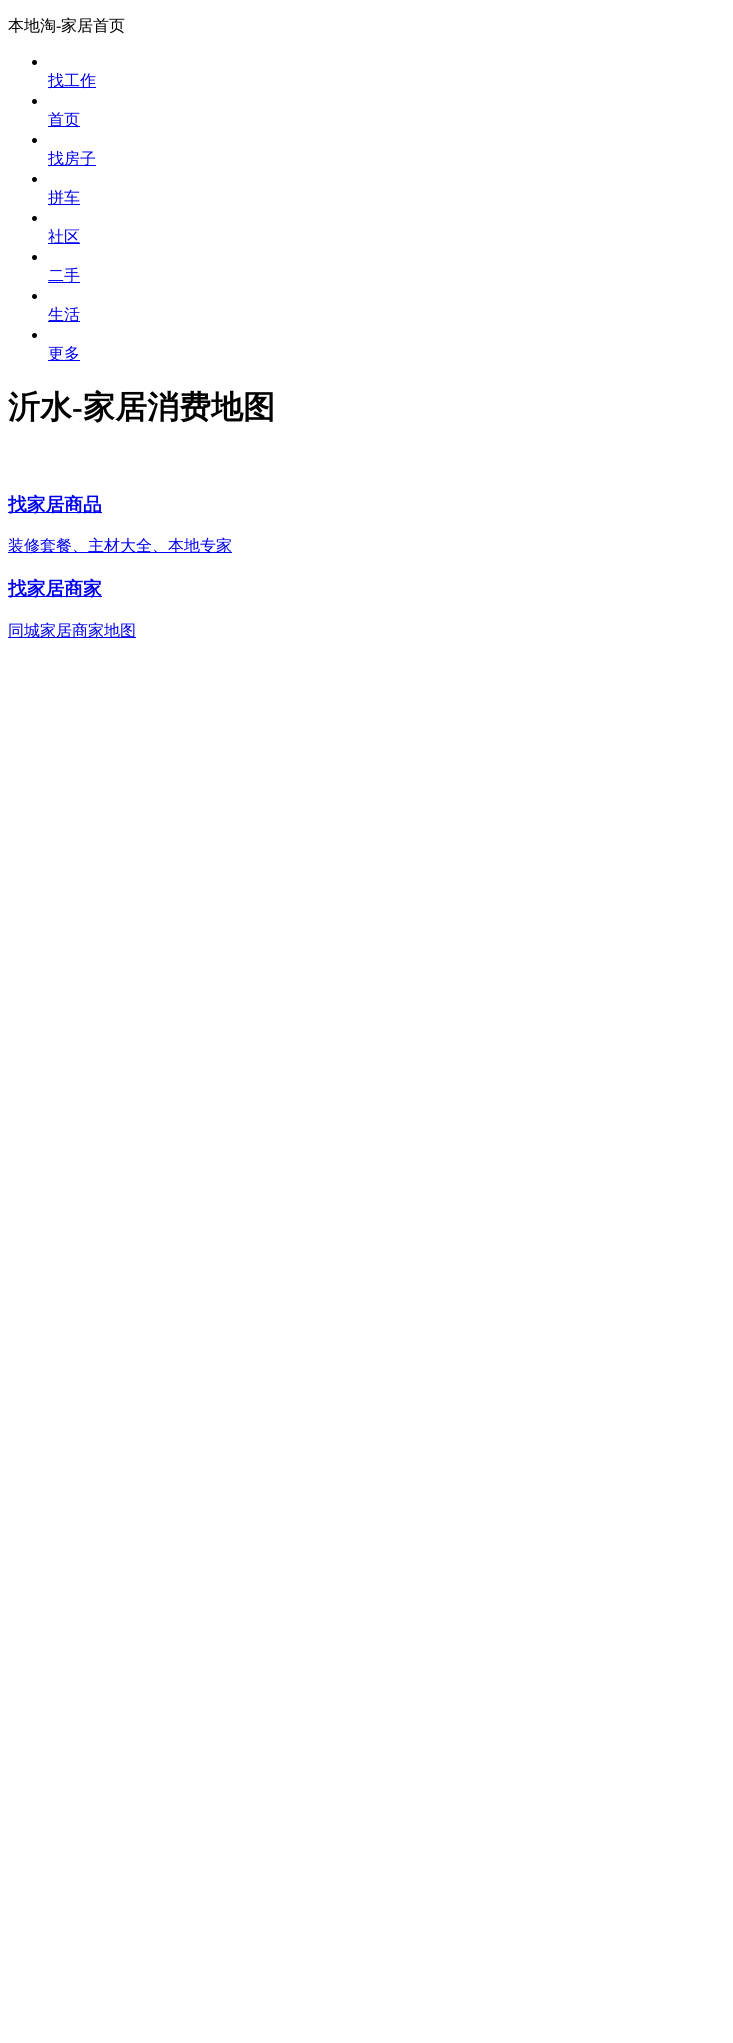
import math
import cairocffi as cairo

surface = cairo.ImageSurface(cairo.FORMAT_RGB24, 733, 2043)
cr = cairo.Context(surface)
options = cairo.FontOptions()
options.set_hint_metrics(cairo.HINT_METRICS_OFF)
options.set_hint_style(cairo.HINT_STYLE_NONE)
cr.set_font_options(options)
cr.set_miter_limit(4)


def use_color(code):
    cr.set_source_rgb(*(v / 255 for v in bytes.fromhex(code[-6:])))


use_color("#ffffff")
cr.paint()
cr.select_font_face("WenQuanYi Zen Hei Medium")
cr.set_font_size(16)
use_color("#000000")
cr.move_to(8, 31)
cr.show_text("本地淘")
cr.select_font_face("Liberation Serif")
cr.move_to(56, 31)
cr.show_text("-")
cr.select_font_face("WenQuanYi Zen Hei Medium")
cr.move_to(61, 31)
cr.show_text("家居首页")
cr.new_path()
cr.arc(34.5, 62.5, 2.5, 0, 2 * math.pi)
cr.fill()
use_color("#0000ee")
cr.rectangle(48, 87, 48, 1)
cr.fill()
cr.move_to(48, 86)
cr.show_text("找工作")
use_color("#000000")
cr.new_path()
cr.arc(34.5, 101.5, 2.5, 0, 2 * math.pi)
cr.fill()
use_color("#0000ee")
cr.rectangle(48, 126, 32, 1)
cr.fill()
cr.move_to(48, 125)
cr.show_text("首页")
use_color("#000000")
cr.new_path()
cr.arc(34.5, 140.5, 2.5, 0, 2 * math.pi)
cr.fill()
use_color("#0000ee")
cr.rectangle(48, 165, 48, 1)
cr.fill()
cr.move_to(48, 164)
cr.show_text("找房子")
use_color("#000000")
cr.new_path()
cr.arc(34.5, 179.5, 2.5, 0, 2 * math.pi)
cr.fill()
use_color("#0000ee")
cr.rectangle(48, 204, 32, 1)
cr.fill()
cr.move_to(48, 203)
cr.show_text("拼车")
use_color("#000000")
cr.new_path()
cr.arc(34.5, 218.5, 2.5, 0, 2 * math.pi)
cr.fill()
use_color("#0000ee")
cr.rectangle(48, 243, 32, 1)
cr.fill()
cr.move_to(48, 242)
cr.show_text("社区")
use_color("#000000")
cr.new_path()
cr.arc(34.5, 257.5, 2.5, 0, 2 * math.pi)
cr.fill()
use_color("#0000ee")
cr.rectangle(48, 282, 32, 1)
cr.fill()
cr.move_to(48, 281)
cr.show_text("二手")
use_color("#000000")
cr.new_path()
cr.arc(34.5, 296.5, 2.5, 0, 2 * math.pi)
cr.fill()
use_color("#0000ee")
cr.rectangle(48, 321, 32, 1)
cr.fill()
cr.move_to(48, 320)
cr.show_text("生活")
use_color("#000000")
cr.new_path()
cr.arc(34.5, 335.5, 2.5, 0, 2 * math.pi)
cr.fill()
use_color("#0000ee")
cr.rectangle(48, 360, 32, 1)
cr.fill()
cr.move_to(48, 359)
cr.show_text("更多")
cr.select_font_face("WenQuanYi Zen Hei", cairo.FONT_SLANT_NORMAL, cairo.FONT_WEIGHT_BOLD)
cr.set_font_size(32)
use_color("#000000")
cr.move_to(8, 418)
cr.show_text("沂水")
cr.select_font_face("Liberation Serif", cairo.FONT_SLANT_NORMAL, cairo.FONT_WEIGHT_BOLD)
cr.move_to(72, 418)
cr.show_text("-")
cr.select_font_face("WenQuanYi Zen Hei", cairo.FONT_SLANT_NORMAL, cairo.FONT_WEIGHT_BOLD)
cr.move_to(83, 418)
cr.show_text("家居消费地图")
use_color("#0000ee")
cr.rectangle(8, 512, 94, 1)
cr.fill()
cr.set_font_size(18.75)
cr.move_to(8, 511)
cr.show_text("找家居商品")
cr.rectangle(8, 552, 224, 1)
cr.fill()
cr.select_font_face("WenQuanYi Zen Hei Medium")
cr.set_font_size(16)
cr.move_to(8, 551)
cr.show_text("装修套餐、主材大全、本地专家")
cr.rectangle(8, 596, 94, 1)
cr.fill()
cr.select_font_face("WenQuanYi Zen Hei", cairo.FONT_SLANT_NORMAL, cairo.FONT_WEIGHT_BOLD)
cr.set_font_size(18.75)
cr.move_to(8, 595)
cr.show_text("找家居商家")
cr.rectangle(8, 637, 128, 1)
cr.fill()
cr.select_font_face("WenQuanYi Zen Hei Medium")
cr.set_font_size(16)
cr.move_to(8, 636)
cr.show_text("同城家居商家地图")
surface.write_to_png("result.png")
